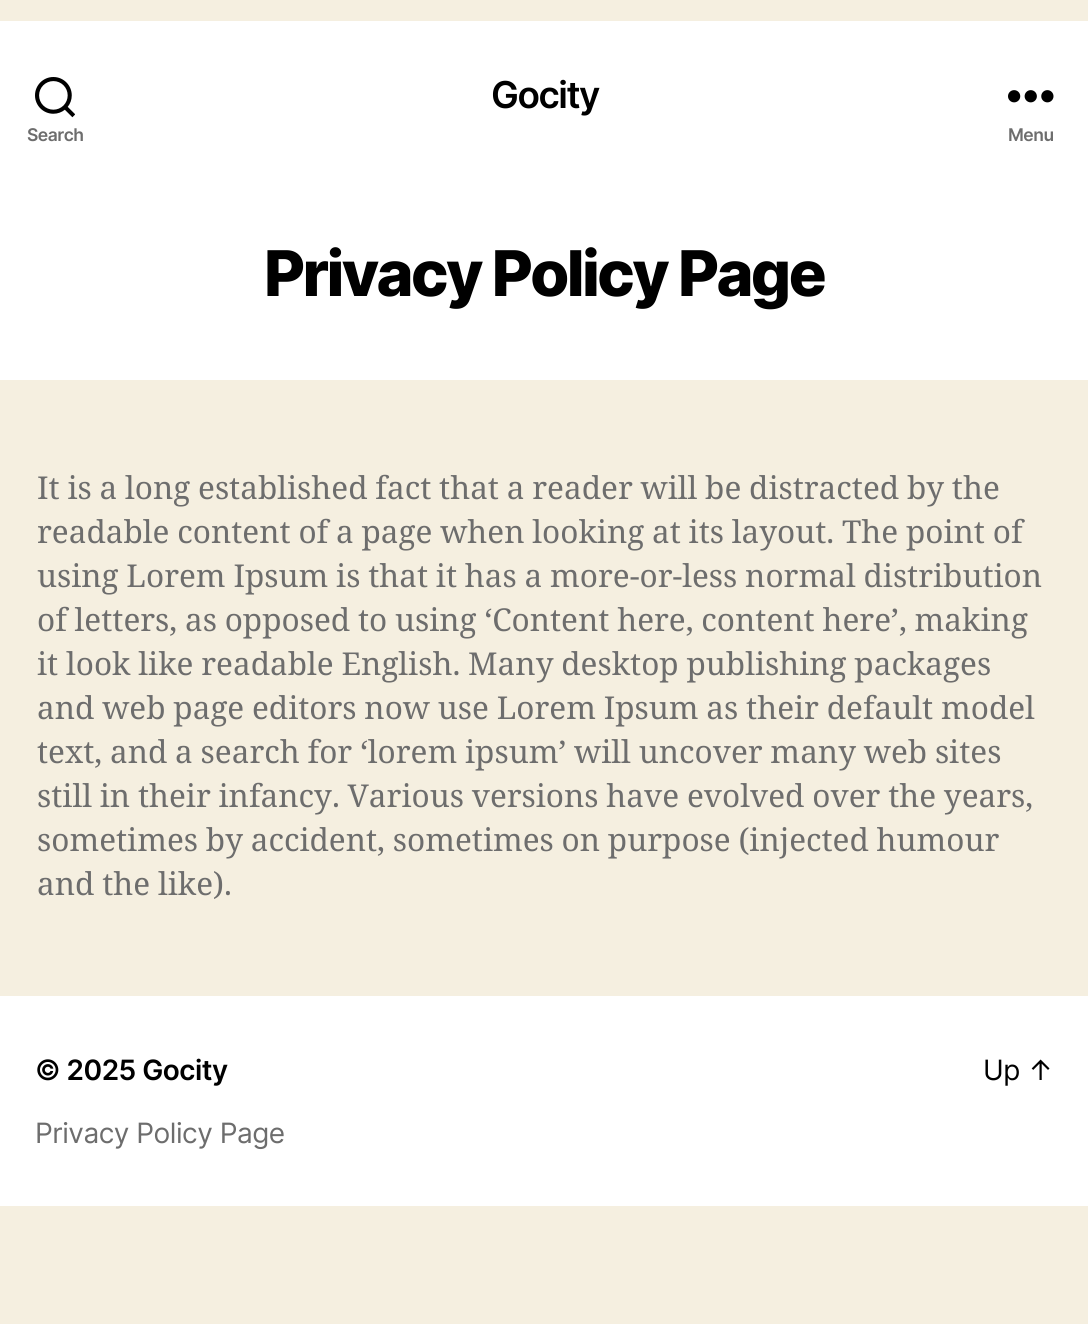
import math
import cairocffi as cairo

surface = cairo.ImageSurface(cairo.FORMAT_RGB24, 1088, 1324)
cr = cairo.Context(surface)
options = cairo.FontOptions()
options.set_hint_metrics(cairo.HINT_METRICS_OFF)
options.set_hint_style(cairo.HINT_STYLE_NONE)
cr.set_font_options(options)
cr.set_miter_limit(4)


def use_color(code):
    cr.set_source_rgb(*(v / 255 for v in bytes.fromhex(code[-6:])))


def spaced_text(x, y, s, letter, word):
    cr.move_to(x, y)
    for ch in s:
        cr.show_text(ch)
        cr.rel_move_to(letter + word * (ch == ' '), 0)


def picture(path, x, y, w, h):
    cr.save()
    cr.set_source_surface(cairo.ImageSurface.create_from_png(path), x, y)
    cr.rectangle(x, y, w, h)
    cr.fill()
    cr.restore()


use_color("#f5efe0")
cr.paint()
use_color("#ffffff")
cr.rectangle(0, 21, 1088, 359)
cr.fill()
cr.select_font_face("Inter SemiBold")
cr.set_font_size(37)
use_color("#000000")
spaced_text(491, 108, "Gocity", -1.5, 0)
picture("img1.png", 35, 77, 40, 41)
cr.set_font_size(17.5)
use_color("#6d6d6d")
spaced_text(27, 141, "Search", -0.5, 0)
picture("img2.png", 1008, 90, 46, 13)
spaced_text(1008, 141, "Menu", -0.5, 0)
cr.select_font_face("Inter ExtraBold")
cr.set_font_size(63)
use_color("#000000")
spaced_text(264, 296, "Privacy Policy Page", -2.6, 0)
cr.select_font_face("Noto Serif")
cr.set_font_size(31.5)
use_color("#6d6d6d")
spaced_text(37, 499, "It is a long established fact that a reader will be distracted by the", 0, -0.4)
spaced_text(37, 543, "readable content of a page when looking at its layout. The point of", 0, -0.4)
spaced_text(37, 587, "using Lorem Ipsum is that it has a more-or-less normal distribution", 0, -0.4)
spaced_text(37, 631, "of letters, as opposed to using ‘Content here, content here’, making", 0, -0.4)
spaced_text(37, 675, "it look like readable English. Many desktop publishing packages", 0, -0.4)
spaced_text(37, 719, "and web page editors now use Lorem Ipsum as their default model", 0, -0.4)
spaced_text(37, 763, "text, and a search for ‘lorem ipsum’ will uncover many web sites", 0, -0.4)
spaced_text(37, 807, "still in their infancy. Various versions have evolved over the years,", 0, -0.4)
spaced_text(37, 851, "sometimes by accident, sometimes on purpose (injected humour", 0, -0.4)
spaced_text(37, 895, "and the like).", 0, -0.4)
use_color("#ffffff")
cr.rectangle(0, 996, 1088, 210)
cr.fill()
cr.select_font_face("Inter SemiBold")
cr.set_font_size(28)
use_color("#000000")
spaced_text(35, 1080, "© 2025 Gocity", -0.5, 0)
cr.select_font_face("Inter")
use_color("#6d6d6d")
spaced_text(35, 1143, "Privacy Policy Page", -0.5, 0)
use_color("#000000")
spaced_text(983, 1080, "Up ↑", -0.5, 0)
surface.write_to_png("result.png")
